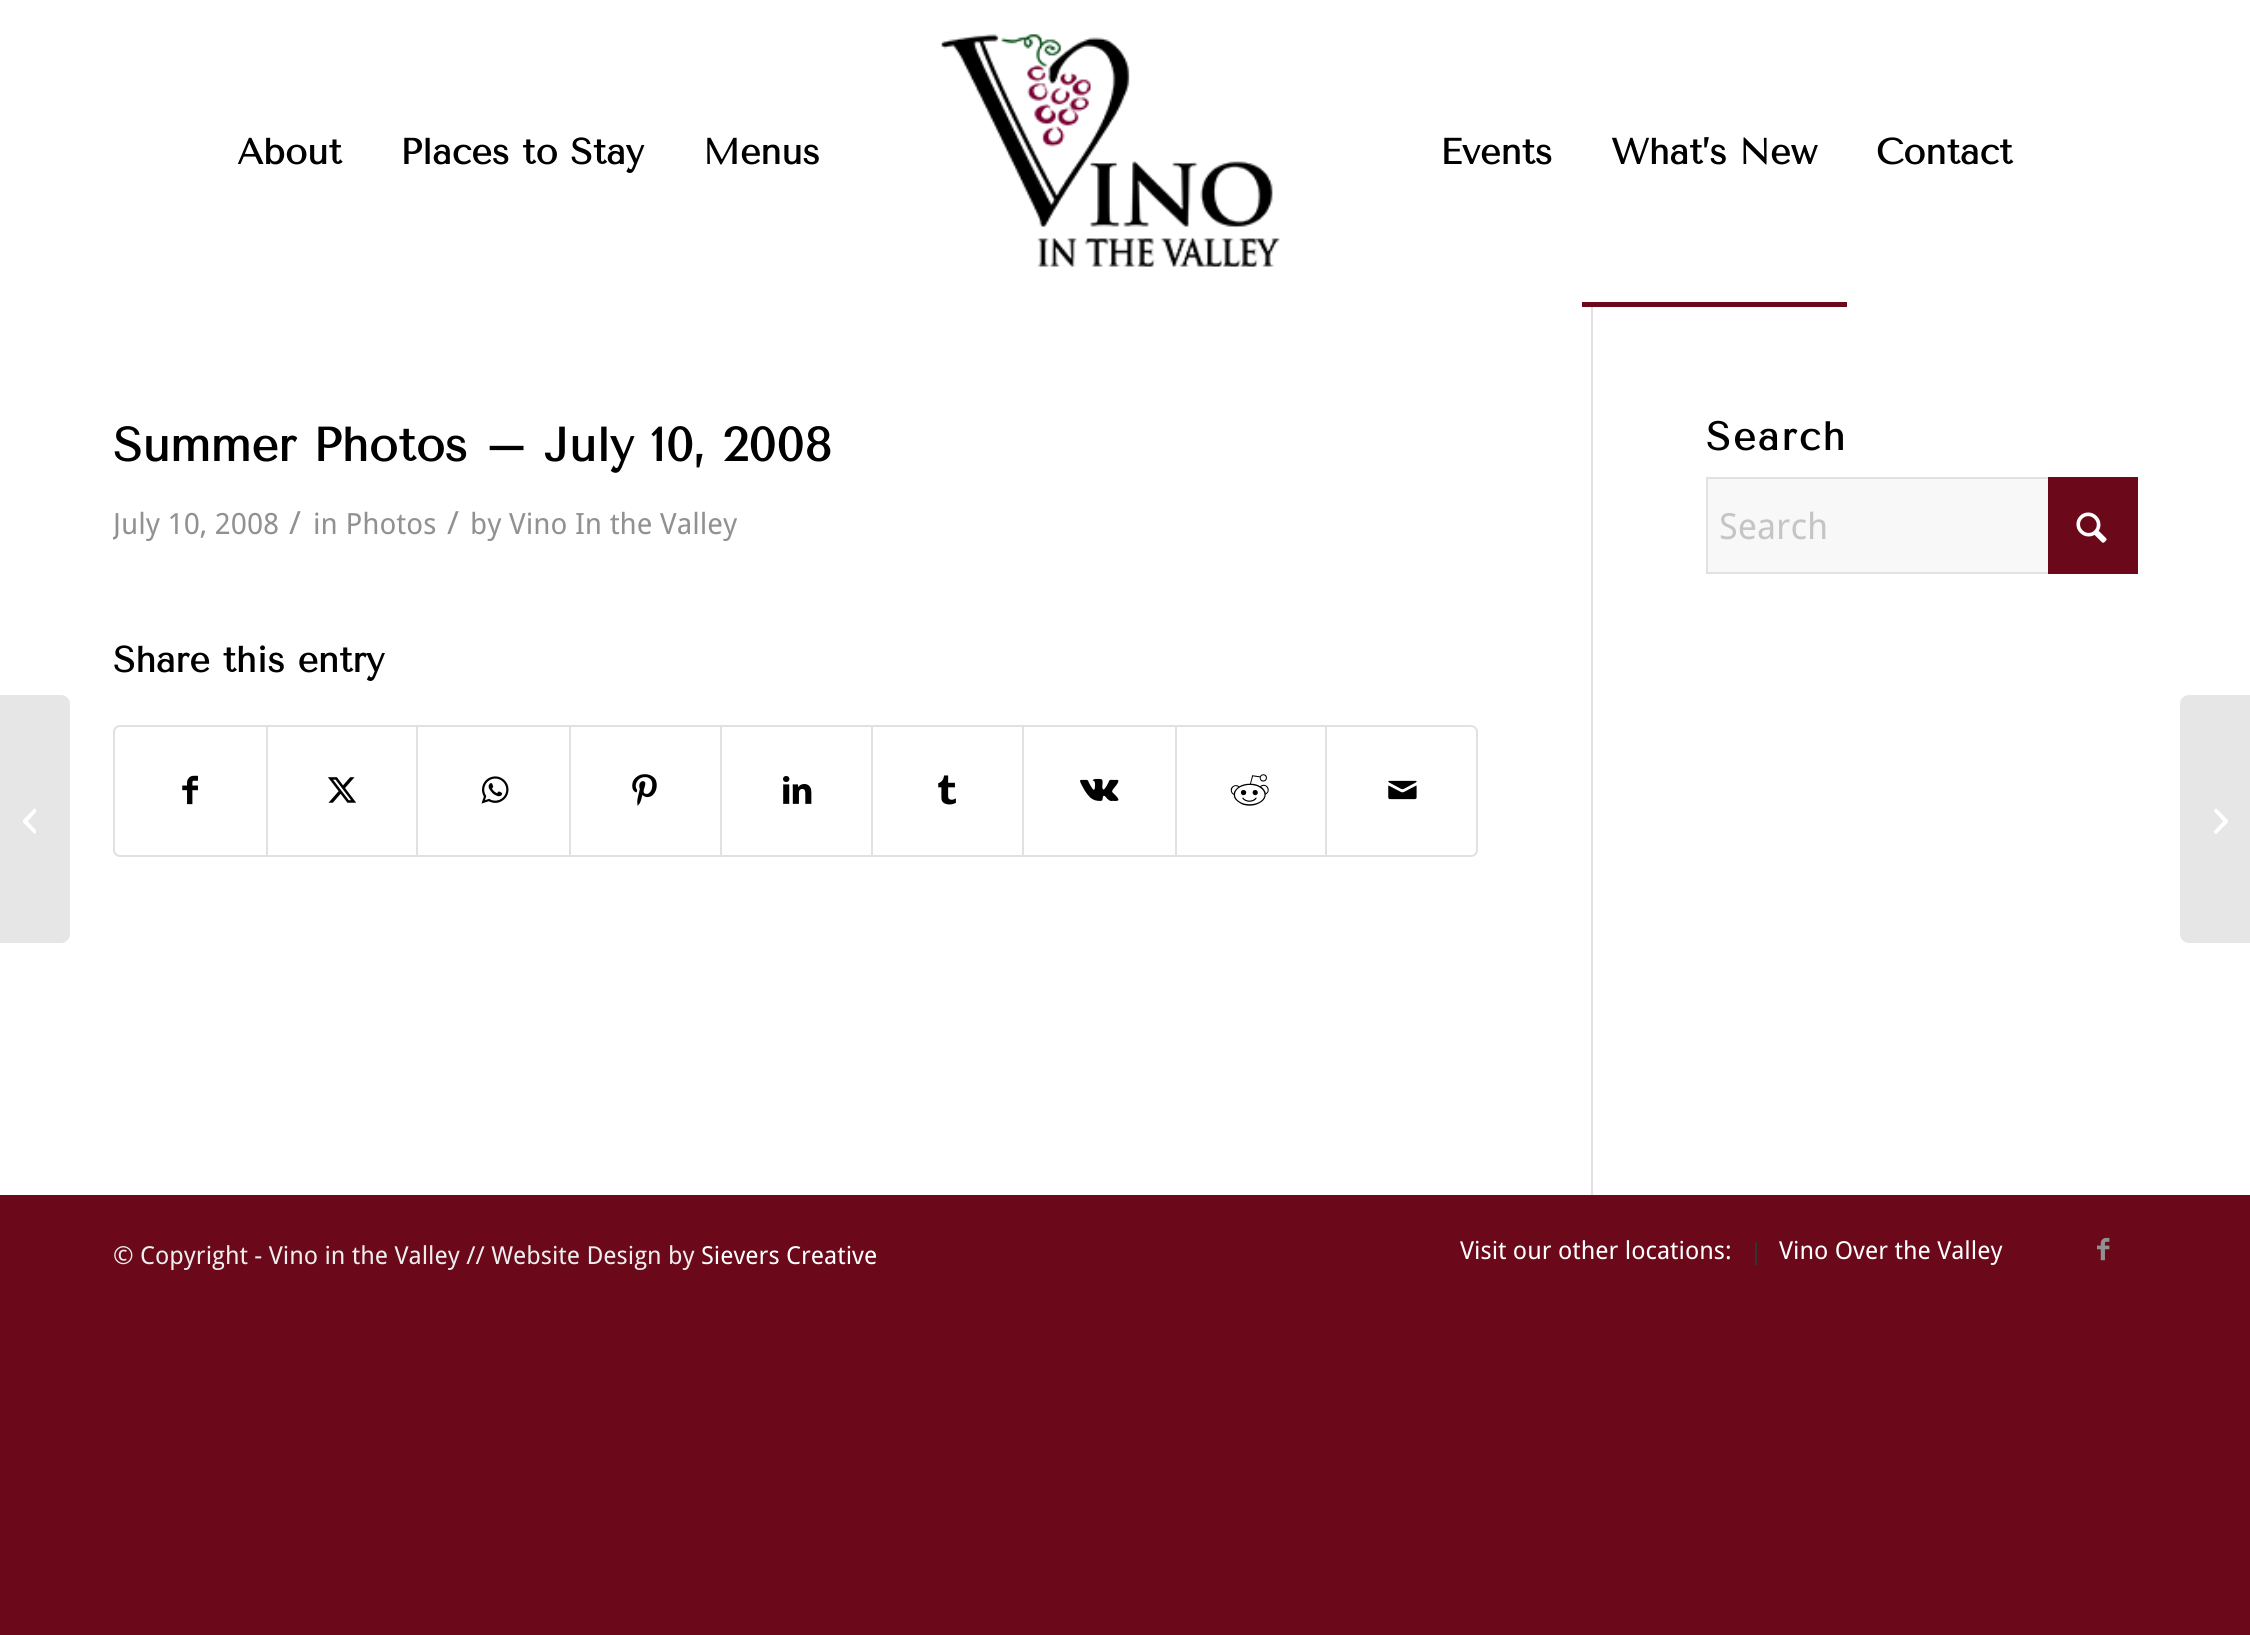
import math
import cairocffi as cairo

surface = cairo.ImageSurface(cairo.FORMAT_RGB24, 2250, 1635)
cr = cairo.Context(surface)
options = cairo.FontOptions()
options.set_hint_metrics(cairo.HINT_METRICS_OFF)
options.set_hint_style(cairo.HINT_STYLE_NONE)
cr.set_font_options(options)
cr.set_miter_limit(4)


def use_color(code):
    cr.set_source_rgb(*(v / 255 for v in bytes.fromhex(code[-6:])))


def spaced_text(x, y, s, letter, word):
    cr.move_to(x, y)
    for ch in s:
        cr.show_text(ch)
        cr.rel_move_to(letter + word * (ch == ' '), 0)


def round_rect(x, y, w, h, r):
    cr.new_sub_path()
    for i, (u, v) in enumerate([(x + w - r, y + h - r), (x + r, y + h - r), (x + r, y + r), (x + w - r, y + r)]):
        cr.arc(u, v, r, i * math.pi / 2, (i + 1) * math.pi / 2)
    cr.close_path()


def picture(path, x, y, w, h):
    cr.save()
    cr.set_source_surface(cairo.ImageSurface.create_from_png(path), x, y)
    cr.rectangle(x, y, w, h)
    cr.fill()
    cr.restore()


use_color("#6b081a")
cr.paint()
use_color("#ffffff")
cr.rectangle(0, 0, 2250, 1195)
cr.fill()
picture("img1.png", 941, 34, 339, 233)
cr.select_font_face("Tenor Sans", cairo.FONT_SLANT_NORMAL, cairo.FONT_WEIGHT_BOLD)
cr.set_font_size(36)
use_color("#000000")
cr.move_to(237, 164)
cr.show_text("About")
cr.move_to(400, 164)
cr.show_text("Places to Stay")
cr.move_to(703, 164)
cr.show_text("Menus")
cr.move_to(1440, 164)
cr.show_text("Events")
cr.move_to(1611, 164)
cr.show_text("What’s New")
use_color("#e1e1e1")
cr.rectangle(1591, 304, 2, 891)
cr.fill()
use_color("#6b081a")
cr.rectangle(1582, 302, 265, 5)
cr.fill()
use_color("#000000")
cr.move_to(1876, 164)
cr.show_text("Contact")
use_color("#e6e6e6")
cr.new_path()
cr.move_to(0, 695)
cr.line_to(61, 695)
cr.curve_to(66, 695, 70, 699, 70, 704)
cr.line_to(70, 934)
cr.curve_to(70, 939, 66, 943, 61, 943)
cr.line_to(0, 943)
cr.close_path()
cr.fill()
picture("img2.png", 23, 808, 13, 26)
cr.set_font_size(47.25)
use_color("#000000")
cr.move_to(113, 461)
cr.show_text("Summer Photos – July 10, 2008")
cr.save()
cr.rectangle(113, 416, 1478, 666)
cr.clip()
cr.select_font_face("Droid Sans")
cr.set_font_size(29.25)
use_color("#919191")
cr.move_to(113, 534)
cr.show_text("July 10, 2008")
cr.restore()
cr.select_font_face("Droid Sans")
cr.set_font_size(32)
use_color("#919191")
cr.move_to(289, 534)
cr.show_text("/")
cr.set_font_size(29.25)
cr.move_to(313, 534)
cr.show_text("in Photos")
cr.set_font_size(32)
cr.move_to(447, 534)
cr.show_text("/")
cr.set_font_size(29.25)
cr.move_to(470, 534)
cr.show_text("by Vino In the Valley")
cr.select_font_face("Tenor Sans", cairo.FONT_SLANT_NORMAL, cairo.FONT_WEIGHT_BOLD)
cr.set_font_size(36)
use_color("#000000")
cr.move_to(113, 672)
cr.show_text("Share this entry")
round_rect(114, 726, 1363, 130, 6)
use_color("#e1e1e1")
cr.stroke()
picture("img3.png", 182, 775, 16, 30)
cr.rectangle(266, 727, 2, 128)
cr.fill()
picture("img4.png", 328, 777, 29, 26)
cr.rectangle(416, 727, 2, 128)
cr.fill()
picture("img5.png", 481, 776, 28, 28)
cr.rectangle(569, 727, 2, 128)
cr.fill()
picture("img6.png", 632, 774, 25, 32)
cr.rectangle(720, 727, 2, 128)
cr.fill()
picture("img7.png", 783, 776, 29, 28)
cr.rectangle(871, 727, 2, 128)
cr.fill()
picture("img8.png", 938, 775, 18, 30)
cr.rectangle(1022, 727, 2, 128)
cr.fill()
picture("img9.png", 1080, 778, 39, 23)
cr.rectangle(1175, 727, 2, 128)
cr.fill()
picture("img10.png", 1230, 774, 39, 32)
cr.rectangle(1325, 727, 2, 128)
cr.fill()
picture("img11.png", 1388, 780, 29, 20)
cr.set_font_size(39.5)
use_color("#000000")
spaced_text(1706, 450, "Search", 2.25, 0)
use_color("#f8f8f8")
cr.rectangle(1708, 479, 340, 93)
cr.fill()
cr.rectangle(1707, 478, 430, 95)
use_color("#e1e1e1")
cr.stroke()
cr.select_font_face("Droid Sans")
cr.set_font_size(36)
use_color("#c5c5c5")
cr.move_to(1719, 539)
cr.show_text("Search")
use_color("#6b081a")
cr.rectangle(2048, 477, 90, 97)
cr.fill()
picture("img12.png", 2076, 512, 31, 31)
cr.set_font_size(24.75)
use_color("#eeeeee")
cr.move_to(113, 1264)
cr.show_text("© Copyright - Vino in the Valley // Website Design by")
use_color("#ffffff")
cr.move_to(701, 1264)
cr.show_text("Sievers Creative")
cr.move_to(1460, 1259)
cr.show_text("Visit our other locations:")
use_color("#333333")
cr.rectangle(1755, 1242, 2, 23)
cr.fill()
use_color("#ffffff")
cr.move_to(1779, 1259)
cr.show_text("Vino Over the Valley")
picture("img13.png", 2097, 1237, 13, 24)
use_color("#e6e6e6")
cr.new_path()
cr.move_to(2189, 695)
cr.line_to(2250, 695)
cr.line_to(2250, 943)
cr.line_to(2189, 943)
cr.curve_to(2184, 943, 2180, 939, 2180, 934)
cr.line_to(2180, 704)
cr.curve_to(2180, 699, 2184, 695, 2189, 695)
cr.close_path()
cr.fill()
picture("img14.png", 2214, 808, 14, 26)
surface.write_to_png("result.png")
